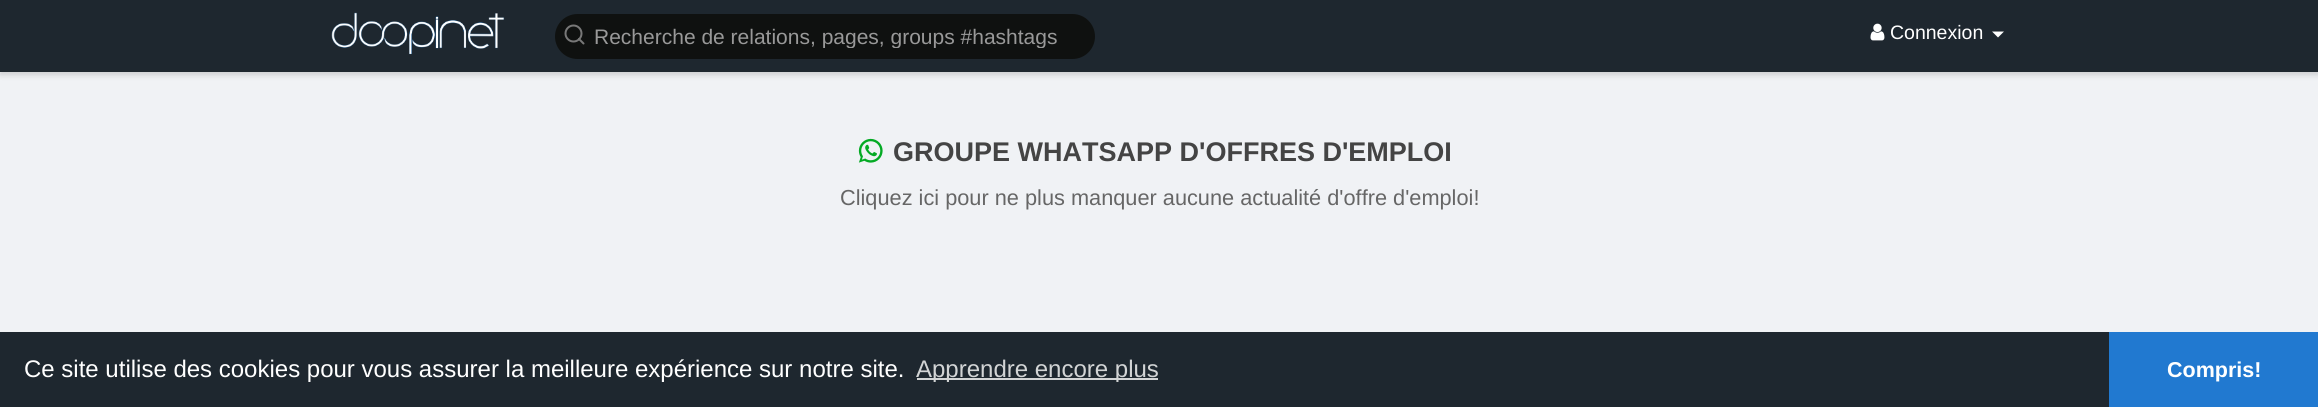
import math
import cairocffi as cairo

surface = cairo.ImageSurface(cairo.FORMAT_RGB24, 2318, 407)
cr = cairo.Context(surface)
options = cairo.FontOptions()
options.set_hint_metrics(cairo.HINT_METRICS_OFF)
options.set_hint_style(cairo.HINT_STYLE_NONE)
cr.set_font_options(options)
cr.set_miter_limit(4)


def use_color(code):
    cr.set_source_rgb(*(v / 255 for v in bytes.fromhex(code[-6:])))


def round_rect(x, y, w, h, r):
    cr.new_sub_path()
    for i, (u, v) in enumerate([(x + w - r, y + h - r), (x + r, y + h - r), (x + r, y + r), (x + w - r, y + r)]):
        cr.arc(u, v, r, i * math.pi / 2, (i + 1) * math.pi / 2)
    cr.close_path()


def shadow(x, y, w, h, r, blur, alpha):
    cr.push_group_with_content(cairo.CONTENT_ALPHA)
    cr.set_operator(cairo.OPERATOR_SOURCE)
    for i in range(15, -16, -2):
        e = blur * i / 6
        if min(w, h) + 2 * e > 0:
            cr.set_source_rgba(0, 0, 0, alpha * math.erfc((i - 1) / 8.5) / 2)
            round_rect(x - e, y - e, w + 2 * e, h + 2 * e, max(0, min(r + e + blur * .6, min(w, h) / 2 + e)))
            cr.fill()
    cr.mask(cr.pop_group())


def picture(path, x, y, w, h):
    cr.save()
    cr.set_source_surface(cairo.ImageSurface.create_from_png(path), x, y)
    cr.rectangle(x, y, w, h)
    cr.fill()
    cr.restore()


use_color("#f0f2f5")
cr.paint()
use_color("#000000")
shadow(0, 3, 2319, 72, 0, 3, 0.15)
use_color("#1e272f")
cr.rectangle(0, 0, 2318, 72)
cr.fill()
picture("img1.png", 331, 12, 174, 43)
use_color("#0f1110")
round_rect(555, 14, 540, 45, 22.5)
cr.fill()
cr.arc(573.5, 33.5, 8, 0, 2 * math.pi)
use_color("#787878")
cr.stroke()
cr.new_path()
cr.move_to(583.5, 43.5)
cr.line_to(579, 39)
cr.set_line_cap(cairo.LINE_CAP_ROUND)
cr.set_line_join(cairo.LINE_JOIN_ROUND)
cr.stroke()
cr.save()
cr.rectangle(594, 24, 482, 24)
cr.clip()
cr.select_font_face("Liberation Sans")
cr.set_font_size(21)
use_color("#999999")
cr.move_to(594, 44)
cr.show_text("Recherche de relations, pages, groups #hashtags")
cr.restore()
picture("img2.png", 1870, 23, 15, 18)
cr.select_font_face("Liberation Sans")
cr.set_font_size(19.5)
use_color("#ffffff")
cr.move_to(1890, 39)
cr.show_text("Connexion")
cr.new_path()
cr.move_to(1992, 31.5)
cr.line_to(2004, 31.5)
cr.line_to(1998, 37.5)
cr.close_path()
cr.fill()
picture("img3.png", 858, 138, 25, 25)
cr.select_font_face("Liberation Sans", cairo.FONT_SLANT_NORMAL, cairo.FONT_WEIGHT_BOLD)
cr.set_font_size(27)
use_color("#444444")
cr.move_to(893, 161)
cr.show_text("GROUPE WHATSAPP D'OFFRES D'EMPLOI")
cr.select_font_face("Liberation Sans")
cr.set_font_size(21.75)
use_color("#666666")
cr.move_to(840, 205)
cr.show_text("Cliquez ici pour ne plus manquer aucune actualité d'offre d'emploi!")
use_color("#1e272f")
cr.rectangle(0, 332, 2109, 75)
cr.fill()
cr.set_font_size(24)
use_color("#ffffff")
cr.move_to(24, 377)
cr.show_text("Ce site utilise des cookies pour vous assurer la meilleure expérience sur notre site.")
use_color("#d2d4d5")
cr.rectangle(917, 378, 241, 2)
cr.fill()
cr.move_to(916, 377)
cr.show_text("Apprendre encore plus")
use_color("#2179d0")
cr.rectangle(2109, 332, 209, 75)
cr.fill()
cr.select_font_face("Liberation Sans", cairo.FONT_SLANT_NORMAL, cairo.FONT_WEIGHT_BOLD)
cr.set_font_size(21.5)
use_color("#ffffff")
cr.move_to(2167, 377)
cr.show_text("Compris!")
surface.write_to_png("result.png")
